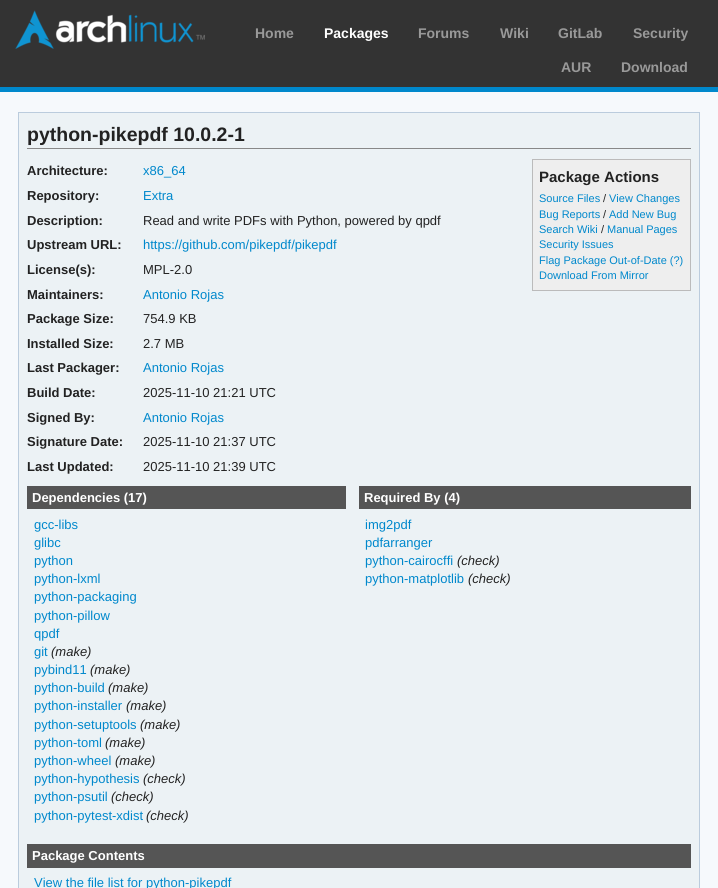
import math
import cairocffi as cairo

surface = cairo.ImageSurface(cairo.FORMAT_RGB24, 718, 888)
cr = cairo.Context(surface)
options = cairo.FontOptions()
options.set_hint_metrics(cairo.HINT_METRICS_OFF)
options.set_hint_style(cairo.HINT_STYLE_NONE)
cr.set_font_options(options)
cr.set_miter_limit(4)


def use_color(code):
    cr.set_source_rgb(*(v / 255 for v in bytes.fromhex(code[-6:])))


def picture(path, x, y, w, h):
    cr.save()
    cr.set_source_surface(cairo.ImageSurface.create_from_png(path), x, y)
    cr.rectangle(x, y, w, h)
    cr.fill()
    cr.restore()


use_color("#f6f9fc")
cr.paint()
use_color("#333333")
cr.rectangle(0, 0, 718, 87)
cr.fill()
use_color("#0088cc")
cr.rectangle(0, 87, 718, 5)
cr.fill()
picture("img1.png", 15, 10, 190, 39)
cr.select_font_face("Liberation Sans", cairo.FONT_SLANT_NORMAL, cairo.FONT_WEIGHT_BOLD)
cr.set_font_size(14)
use_color("#999999")
cr.move_to(255, 38)
cr.show_text("Home")
use_color("#ffffff")
cr.move_to(324, 38)
cr.show_text("Packages")
use_color("#999999")
cr.move_to(418, 38)
cr.show_text("Forums")
cr.move_to(500, 38)
cr.show_text("Wiki")
cr.move_to(558, 38)
cr.show_text("GitLab")
cr.move_to(633, 38)
cr.show_text("Security")
cr.move_to(561, 72)
cr.show_text("AUR")
cr.move_to(621, 72)
cr.show_text("Download")
use_color("#ecf2f5")
cr.rectangle(18.5, 112.5, 681, 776)
cr.fill_preserve()
use_color("#bbccdd")
cr.set_line_width(1)
cr.stroke()
use_color("#888888")
cr.rectangle(27, 148, 664, 1)
cr.fill()
cr.set_font_size(19.5)
use_color("#222222")
cr.move_to(27, 141)
cr.show_text("python-pikepdf 10.0.2-1")
cr.set_font_size(13)
cr.move_to(27, 175)
cr.show_text("Architecture:")
cr.select_font_face("Liberation Sans")
use_color("#0088cc")
cr.move_to(143, 175)
cr.show_text("x86_64")
cr.select_font_face("Liberation Sans", cairo.FONT_SLANT_NORMAL, cairo.FONT_WEIGHT_BOLD)
use_color("#222222")
cr.move_to(27, 200)
cr.show_text("Repository:")
cr.select_font_face("Liberation Sans")
use_color("#0088cc")
cr.move_to(143, 200)
cr.show_text("Extra")
cr.select_font_face("Liberation Sans", cairo.FONT_SLANT_NORMAL, cairo.FONT_WEIGHT_BOLD)
use_color("#222222")
cr.move_to(27, 225)
cr.show_text("Description:")
cr.select_font_face("Liberation Sans")
cr.move_to(143, 225)
cr.show_text("Read and write PDFs with Python, powered by qpdf")
cr.select_font_face("Liberation Sans", cairo.FONT_SLANT_NORMAL, cairo.FONT_WEIGHT_BOLD)
cr.move_to(27, 249)
cr.show_text("Upstream URL:")
cr.select_font_face("Liberation Sans")
use_color("#0088cc")
cr.move_to(143, 249)
cr.show_text("https://github.com/pikepdf/pikepdf")
cr.select_font_face("Liberation Sans", cairo.FONT_SLANT_NORMAL, cairo.FONT_WEIGHT_BOLD)
use_color("#222222")
cr.move_to(27, 274)
cr.show_text("License(s):")
cr.select_font_face("Liberation Sans")
cr.move_to(143, 274)
cr.show_text("MPL-2.0")
cr.select_font_face("Liberation Sans", cairo.FONT_SLANT_NORMAL, cairo.FONT_WEIGHT_BOLD)
cr.move_to(27, 299)
cr.show_text("Maintainers:")
cr.select_font_face("Liberation Sans")
use_color("#0088cc")
cr.move_to(143, 299)
cr.show_text("Antonio Rojas")
cr.select_font_face("Liberation Sans", cairo.FONT_SLANT_NORMAL, cairo.FONT_WEIGHT_BOLD)
use_color("#222222")
cr.move_to(27, 323)
cr.show_text("Package Size:")
cr.select_font_face("Liberation Sans")
cr.move_to(143, 323)
cr.show_text("754.9 KB")
cr.select_font_face("Liberation Sans", cairo.FONT_SLANT_NORMAL, cairo.FONT_WEIGHT_BOLD)
cr.move_to(27, 348)
cr.show_text("Installed Size:")
cr.select_font_face("Liberation Sans")
cr.move_to(143, 348)
cr.show_text("2.7 MB")
cr.select_font_face("Liberation Sans", cairo.FONT_SLANT_NORMAL, cairo.FONT_WEIGHT_BOLD)
cr.move_to(27, 372)
cr.show_text("Last Packager:")
cr.select_font_face("Liberation Sans")
use_color("#0088cc")
cr.move_to(143, 372)
cr.show_text("Antonio Rojas")
cr.select_font_face("Liberation Sans", cairo.FONT_SLANT_NORMAL, cairo.FONT_WEIGHT_BOLD)
use_color("#222222")
cr.move_to(27, 397)
cr.show_text("Build Date:")
cr.select_font_face("Liberation Sans")
cr.move_to(143, 397)
cr.show_text("2025-11-10 21:21 UTC")
cr.select_font_face("Liberation Sans", cairo.FONT_SLANT_NORMAL, cairo.FONT_WEIGHT_BOLD)
cr.move_to(27, 422)
cr.show_text("Signed By:")
cr.select_font_face("Liberation Sans")
use_color("#0088cc")
cr.move_to(143, 422)
cr.show_text("Antonio Rojas")
cr.select_font_face("Liberation Sans", cairo.FONT_SLANT_NORMAL, cairo.FONT_WEIGHT_BOLD)
use_color("#222222")
cr.move_to(27, 446)
cr.show_text("Signature Date:")
cr.select_font_face("Liberation Sans")
cr.move_to(143, 446)
cr.show_text("2025-11-10 21:37 UTC")
cr.select_font_face("Liberation Sans", cairo.FONT_SLANT_NORMAL, cairo.FONT_WEIGHT_BOLD)
cr.move_to(27, 471)
cr.show_text("Last Updated:")
cr.select_font_face("Liberation Sans")
cr.move_to(143, 471)
cr.show_text("2025-11-10 21:39 UTC")
use_color("#eeeeee")
cr.rectangle(532.5, 159.5, 158, 131)
cr.fill_preserve()
use_color("#bbbbbb")
cr.stroke()
cr.select_font_face("Liberation Sans", cairo.FONT_SLANT_NORMAL, cairo.FONT_WEIGHT_BOLD)
cr.set_font_size(15)
use_color("#222222")
cr.move_to(539, 182)
cr.show_text("Package Actions")
cr.select_font_face("Liberation Sans")
cr.set_font_size(11)
use_color("#0088cc")
cr.move_to(539, 202)
cr.show_text("Source Files")
use_color("#222222")
cr.move_to(603, 202)
cr.show_text("/")
use_color("#0088cc")
cr.move_to(609, 202)
cr.show_text("View Changes")
cr.move_to(539, 218)
cr.show_text("Bug Reports")
use_color("#222222")
cr.move_to(603, 218)
cr.show_text("/")
use_color("#0088cc")
cr.move_to(609, 218)
cr.show_text("Add New Bug")
cr.move_to(539, 233)
cr.show_text("Search Wiki")
use_color("#222222")
cr.move_to(601, 233)
cr.show_text("/")
use_color("#0088cc")
cr.move_to(607, 233)
cr.show_text("Manual Pages")
cr.move_to(539, 248)
cr.show_text("Security Issues")
cr.move_to(539, 264)
cr.show_text("Flag Package Out-of-Date (?)")
cr.move_to(539, 279)
cr.show_text("Download From Mirror")
use_color("#555555")
cr.rectangle(27, 486, 319, 23)
cr.fill()
cr.select_font_face("Liberation Sans", cairo.FONT_SLANT_NORMAL, cairo.FONT_WEIGHT_BOLD)
cr.set_font_size(13)
use_color("#ffffff")
cr.move_to(32, 502)
cr.show_text("Dependencies (17)")
cr.select_font_face("Liberation Sans")
use_color("#0088cc")
cr.move_to(34, 529)
cr.show_text("gcc-libs")
cr.move_to(34, 547)
cr.show_text("glibc")
cr.move_to(34, 565)
cr.show_text("python")
cr.move_to(34, 583)
cr.show_text("python-lxml")
cr.move_to(34, 601)
cr.show_text("python-packaging")
cr.move_to(34, 620)
cr.show_text("python-pillow")
cr.move_to(34, 638)
cr.show_text("qpdf")
cr.move_to(34, 656)
cr.show_text("git")
cr.select_font_face("Liberation Sans", cairo.FONT_SLANT_ITALIC)
use_color("#222222")
cr.move_to(51, 656)
cr.show_text("(make)")
cr.select_font_face("Liberation Sans")
use_color("#0088cc")
cr.move_to(34, 674)
cr.show_text("pybind11")
cr.select_font_face("Liberation Sans", cairo.FONT_SLANT_ITALIC)
use_color("#222222")
cr.move_to(90, 674)
cr.show_text("(make)")
cr.select_font_face("Liberation Sans")
use_color("#0088cc")
cr.move_to(34, 692)
cr.show_text("python-build")
cr.select_font_face("Liberation Sans", cairo.FONT_SLANT_ITALIC)
use_color("#222222")
cr.move_to(108, 692)
cr.show_text("(make)")
cr.select_font_face("Liberation Sans")
use_color("#0088cc")
cr.move_to(34, 710)
cr.show_text("python-installer")
cr.select_font_face("Liberation Sans", cairo.FONT_SLANT_ITALIC)
use_color("#222222")
cr.move_to(126, 710)
cr.show_text("(make)")
cr.select_font_face("Liberation Sans")
use_color("#0088cc")
cr.move_to(34, 729)
cr.show_text("python-setuptools")
cr.select_font_face("Liberation Sans", cairo.FONT_SLANT_ITALIC)
use_color("#222222")
cr.move_to(140, 729)
cr.show_text("(make)")
cr.select_font_face("Liberation Sans")
use_color("#0088cc")
cr.move_to(34, 747)
cr.show_text("python-toml")
cr.select_font_face("Liberation Sans", cairo.FONT_SLANT_ITALIC)
use_color("#222222")
cr.move_to(105, 747)
cr.show_text("(make)")
cr.select_font_face("Liberation Sans")
use_color("#0088cc")
cr.move_to(34, 765)
cr.show_text("python-wheel")
cr.select_font_face("Liberation Sans", cairo.FONT_SLANT_ITALIC)
use_color("#222222")
cr.move_to(115, 765)
cr.show_text("(make)")
cr.select_font_face("Liberation Sans")
use_color("#0088cc")
cr.move_to(34, 783)
cr.show_text("python-hypothesis")
cr.select_font_face("Liberation Sans", cairo.FONT_SLANT_ITALIC)
use_color("#222222")
cr.move_to(143, 783)
cr.show_text("(check)")
cr.select_font_face("Liberation Sans")
use_color("#0088cc")
cr.move_to(34, 801)
cr.show_text("python-psutil")
cr.select_font_face("Liberation Sans", cairo.FONT_SLANT_ITALIC)
use_color("#222222")
cr.move_to(111, 801)
cr.show_text("(check)")
cr.select_font_face("Liberation Sans")
use_color("#0088cc")
cr.move_to(34, 820)
cr.show_text("python-pytest-xdist")
cr.select_font_face("Liberation Sans", cairo.FONT_SLANT_ITALIC)
use_color("#222222")
cr.move_to(146, 820)
cr.show_text("(check)")
use_color("#555555")
cr.rectangle(359, 486, 332, 23)
cr.fill()
cr.select_font_face("Liberation Sans", cairo.FONT_SLANT_NORMAL, cairo.FONT_WEIGHT_BOLD)
use_color("#ffffff")
cr.move_to(364, 502)
cr.show_text("Required By (4)")
cr.select_font_face("Liberation Sans")
use_color("#0088cc")
cr.move_to(365, 529)
cr.show_text("img2pdf")
cr.move_to(365, 547)
cr.show_text("pdfarranger")
cr.move_to(365, 565)
cr.show_text("python-cairocffi")
cr.select_font_face("Liberation Sans", cairo.FONT_SLANT_ITALIC)
use_color("#222222")
cr.move_to(457, 565)
cr.show_text("(check)")
cr.select_font_face("Liberation Sans")
use_color("#0088cc")
cr.move_to(365, 583)
cr.show_text("python-matplotlib")
cr.select_font_face("Liberation Sans", cairo.FONT_SLANT_ITALIC)
use_color("#222222")
cr.move_to(468, 583)
cr.show_text("(check)")
use_color("#555555")
cr.rectangle(27, 844, 664, 24)
cr.fill()
cr.select_font_face("Liberation Sans", cairo.FONT_SLANT_NORMAL, cairo.FONT_WEIGHT_BOLD)
use_color("#ffffff")
cr.move_to(32, 860)
cr.show_text("Package Contents")
cr.select_font_face("Liberation Sans")
use_color("#0088cc")
cr.move_to(34, 887)
cr.show_text("View the file list for python-pikepdf")
surface.write_to_png("result.png")
